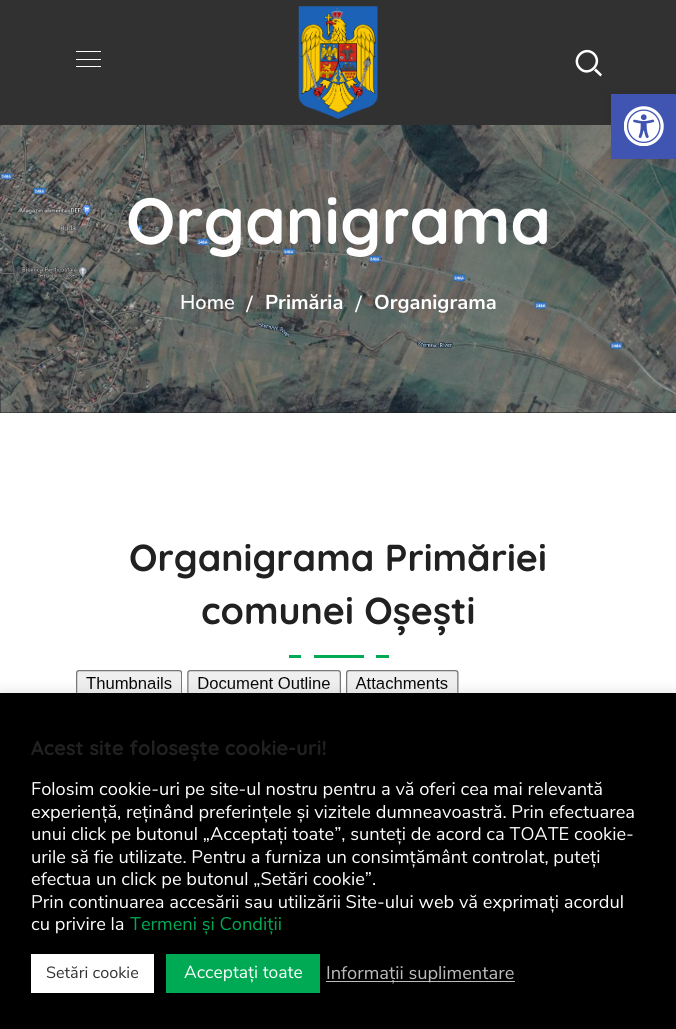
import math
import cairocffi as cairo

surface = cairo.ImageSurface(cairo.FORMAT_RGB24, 676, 1029)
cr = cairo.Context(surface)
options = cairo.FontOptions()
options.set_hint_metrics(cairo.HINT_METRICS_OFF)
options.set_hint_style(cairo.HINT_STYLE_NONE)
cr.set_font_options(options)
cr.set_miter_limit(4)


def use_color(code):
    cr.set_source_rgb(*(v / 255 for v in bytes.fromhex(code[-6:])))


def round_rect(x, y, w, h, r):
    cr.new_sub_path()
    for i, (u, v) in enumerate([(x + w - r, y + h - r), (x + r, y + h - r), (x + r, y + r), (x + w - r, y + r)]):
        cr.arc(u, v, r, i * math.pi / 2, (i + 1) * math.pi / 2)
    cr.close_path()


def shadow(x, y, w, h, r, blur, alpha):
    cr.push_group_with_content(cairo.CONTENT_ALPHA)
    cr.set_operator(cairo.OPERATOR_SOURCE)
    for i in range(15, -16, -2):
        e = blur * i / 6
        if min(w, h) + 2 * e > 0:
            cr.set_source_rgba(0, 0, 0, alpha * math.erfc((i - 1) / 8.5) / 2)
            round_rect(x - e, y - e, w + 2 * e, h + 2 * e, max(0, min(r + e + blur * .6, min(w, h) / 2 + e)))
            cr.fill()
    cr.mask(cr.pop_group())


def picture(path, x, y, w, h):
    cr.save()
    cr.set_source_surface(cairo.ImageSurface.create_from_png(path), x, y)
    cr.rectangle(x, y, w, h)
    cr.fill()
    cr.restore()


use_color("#ffffff")
cr.paint()
use_color("#313131")
cr.rectangle(0, 0, 676, 125)
cr.fill()
use_color("#ffffff")
cr.rectangle(76, 51, 25, 1)
cr.fill()
cr.rectangle(76, 59, 25, 1)
cr.fill()
cr.rectangle(76, 66, 25, 1)
cr.fill()
picture("img1.png", 298, 6, 80, 113)
cr.new_path()
cr.move_to(594, 54)
cr.curve_to(603, 63.5, 589, 77.5, 580, 68.5)
cr.curve_to(570.5, 59, 584.5, 45, 594, 54)
cr.close_path()
cr.set_line_width(2.5)
cr.stroke()
cr.new_path()
cr.move_to(594, 70.5)
cr.line_to(596, 68.5)
cr.line_to(602, 74.5)
cr.line_to(600.5, 76.5)
cr.close_path()
cr.fill()
use_color("#232323")
cr.rectangle(0, 412, 676, 1)
cr.fill()
picture("img3.png", 0, 125, 676, 288)
use_color("#000000")
shadow(611, 94, 65, 65, 0, 6, 0.1)
use_color("#4054b2")
cr.rectangle(611, 94, 65, 65)
cr.fill()
picture("img2.png", 624, 106, 40, 40)
cr.select_font_face("Quicksand", cairo.FONT_SLANT_NORMAL, cairo.FONT_WEIGHT_BOLD)
cr.set_font_size(65)
use_color("#fefefe")
cr.move_to(126, 244)
cr.show_text("Organigrama")
cr.select_font_face("Nunito Sans SemiBold")
cr.set_font_size(20)
cr.move_to(180, 309)
cr.show_text("Home")
cr.select_font_face("Liberation Serif", cairo.FONT_SLANT_NORMAL, cairo.FONT_WEIGHT_BOLD)
cr.set_font_size(25)
cr.move_to(246, 312)
cr.show_text("/")
cr.select_font_face("Nunito Sans", cairo.FONT_SLANT_NORMAL, cairo.FONT_WEIGHT_BOLD)
cr.set_font_size(20)
cr.move_to(265, 309)
cr.show_text("Primăria")
cr.select_font_face("Liberation Serif", cairo.FONT_SLANT_NORMAL, cairo.FONT_WEIGHT_BOLD)
cr.set_font_size(25)
cr.move_to(355, 312)
cr.show_text("/")
cr.select_font_face("Nunito Sans", cairo.FONT_SLANT_NORMAL, cairo.FONT_WEIGHT_BOLD)
cr.set_font_size(20)
cr.move_to(374, 309)
cr.show_text("Organigrama")
cr.select_font_face("Quicksand", cairo.FONT_SLANT_NORMAL, cairo.FONT_WEIGHT_BOLD)
cr.set_font_size(37.5)
use_color("#212121")
cr.move_to(129, 571)
cr.show_text("Organigrama Primăriei")
cr.move_to(201, 624)
cr.show_text("comunei Oșești")
use_color("#00aa55")
cr.rectangle(376, 655, 13, 3)
cr.fill()
cr.rectangle(314, 655, 50, 3)
cr.fill()
cr.rectangle(289, 655, 12, 3)
cr.fill()
picture("img4.png", 76, 670, 383, 23)
use_color("#acabab")
shadow(0, 691, 676, 338, 0, 6, 0.3)
use_color("#000000")
cr.rectangle(0, 693, 676, 336)
cr.fill()
cr.set_font_size(20)
use_color("#212121")
cr.move_to(31, 755)
cr.show_text("Acest site folosește cookie-uri!")
cr.select_font_face("Nunito Sans")
cr.set_font_size(18.3)
use_color("#fefefe")
cr.move_to(31, 795)
cr.show_text("Folosim cookie-uri pe site-ul nostru pentru a vă oferi cea mai relevantă")
cr.move_to(31, 818)
cr.show_text("experiență, reținând preferințele și vizitele dumneavoastră. Prin efectuarea")
cr.move_to(31, 840)
cr.show_text("unui click pe butonul „Acceptați toate”, sunteți de acord ca TOATE cookie-")
cr.move_to(31, 863)
cr.show_text("urile să fie utilizate. Pentru a furniza un consimțământ controlat, puteți")
cr.move_to(31, 885)
cr.show_text("efectua un click pe butonul „Setări cookie”.")
cr.move_to(31, 908)
cr.show_text("Prin continuarea accesării sau utilizării Site-ului web vă exprimați acordul")
cr.move_to(31, 930)
cr.show_text("cu privire la")
use_color("#00aa55")
cr.move_to(130, 930)
cr.show_text("Termeni și Condiții")
use_color("#ffffff")
cr.rectangle(31, 954, 123, 39)
cr.fill()
cr.set_font_size(16.25)
use_color("#333333")
cr.move_to(46, 978)
cr.show_text("Setări cookie")
use_color("#00aa55")
cr.rectangle(166, 954, 154, 39)
cr.fill()
cr.set_font_size(17.5)
use_color("#fefefe")
cr.move_to(184, 978)
cr.show_text("Acceptați toate")
use_color("#bcbcbc")
cr.rectangle(326, 981, 189, 1)
cr.fill()
cr.set_font_size(18.3)
cr.move_to(326, 979)
cr.show_text("Informații suplimentare")
surface.write_to_png("result.png")
